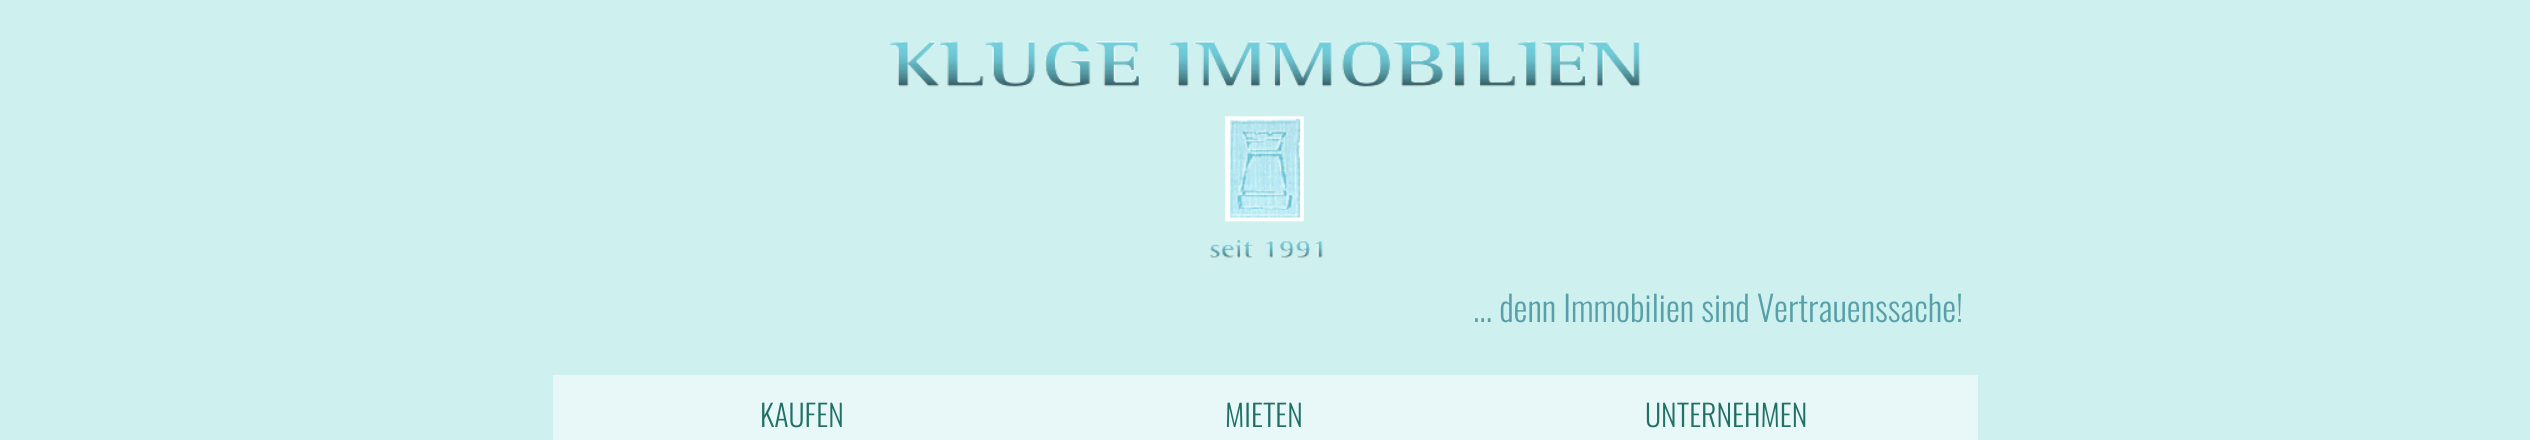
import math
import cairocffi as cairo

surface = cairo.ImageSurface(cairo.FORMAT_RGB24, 2530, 440)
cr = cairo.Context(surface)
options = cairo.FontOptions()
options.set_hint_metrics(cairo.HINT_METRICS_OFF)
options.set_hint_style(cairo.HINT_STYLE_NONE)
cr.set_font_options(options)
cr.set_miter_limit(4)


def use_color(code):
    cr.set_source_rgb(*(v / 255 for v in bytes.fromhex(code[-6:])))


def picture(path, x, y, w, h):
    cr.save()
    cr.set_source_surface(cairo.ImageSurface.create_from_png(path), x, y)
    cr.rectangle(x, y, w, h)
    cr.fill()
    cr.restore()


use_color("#cef0ee")
cr.paint()
picture("img1.png", 890, 41, 751, 46)
picture("img2.png", 1210, 116, 113, 142)
cr.select_font_face("Oswald Light")
cr.set_font_size(35)
use_color("#57a0a9")
cr.move_to(1473, 322)
cr.show_text("... denn Immobilien sind Vertrauenssache!")
use_color("#e8f8f8")
cr.rectangle(553, 375, 1425, 65)
cr.fill()
cr.set_font_size(30)
use_color("#207065")
cr.move_to(760, 427)
cr.show_text("KAUFEN")
cr.move_to(1225, 427)
cr.show_text("MIETEN")
cr.move_to(1645, 427)
cr.show_text("UNTERNEHMEN")
surface.write_to_png("result.png")
